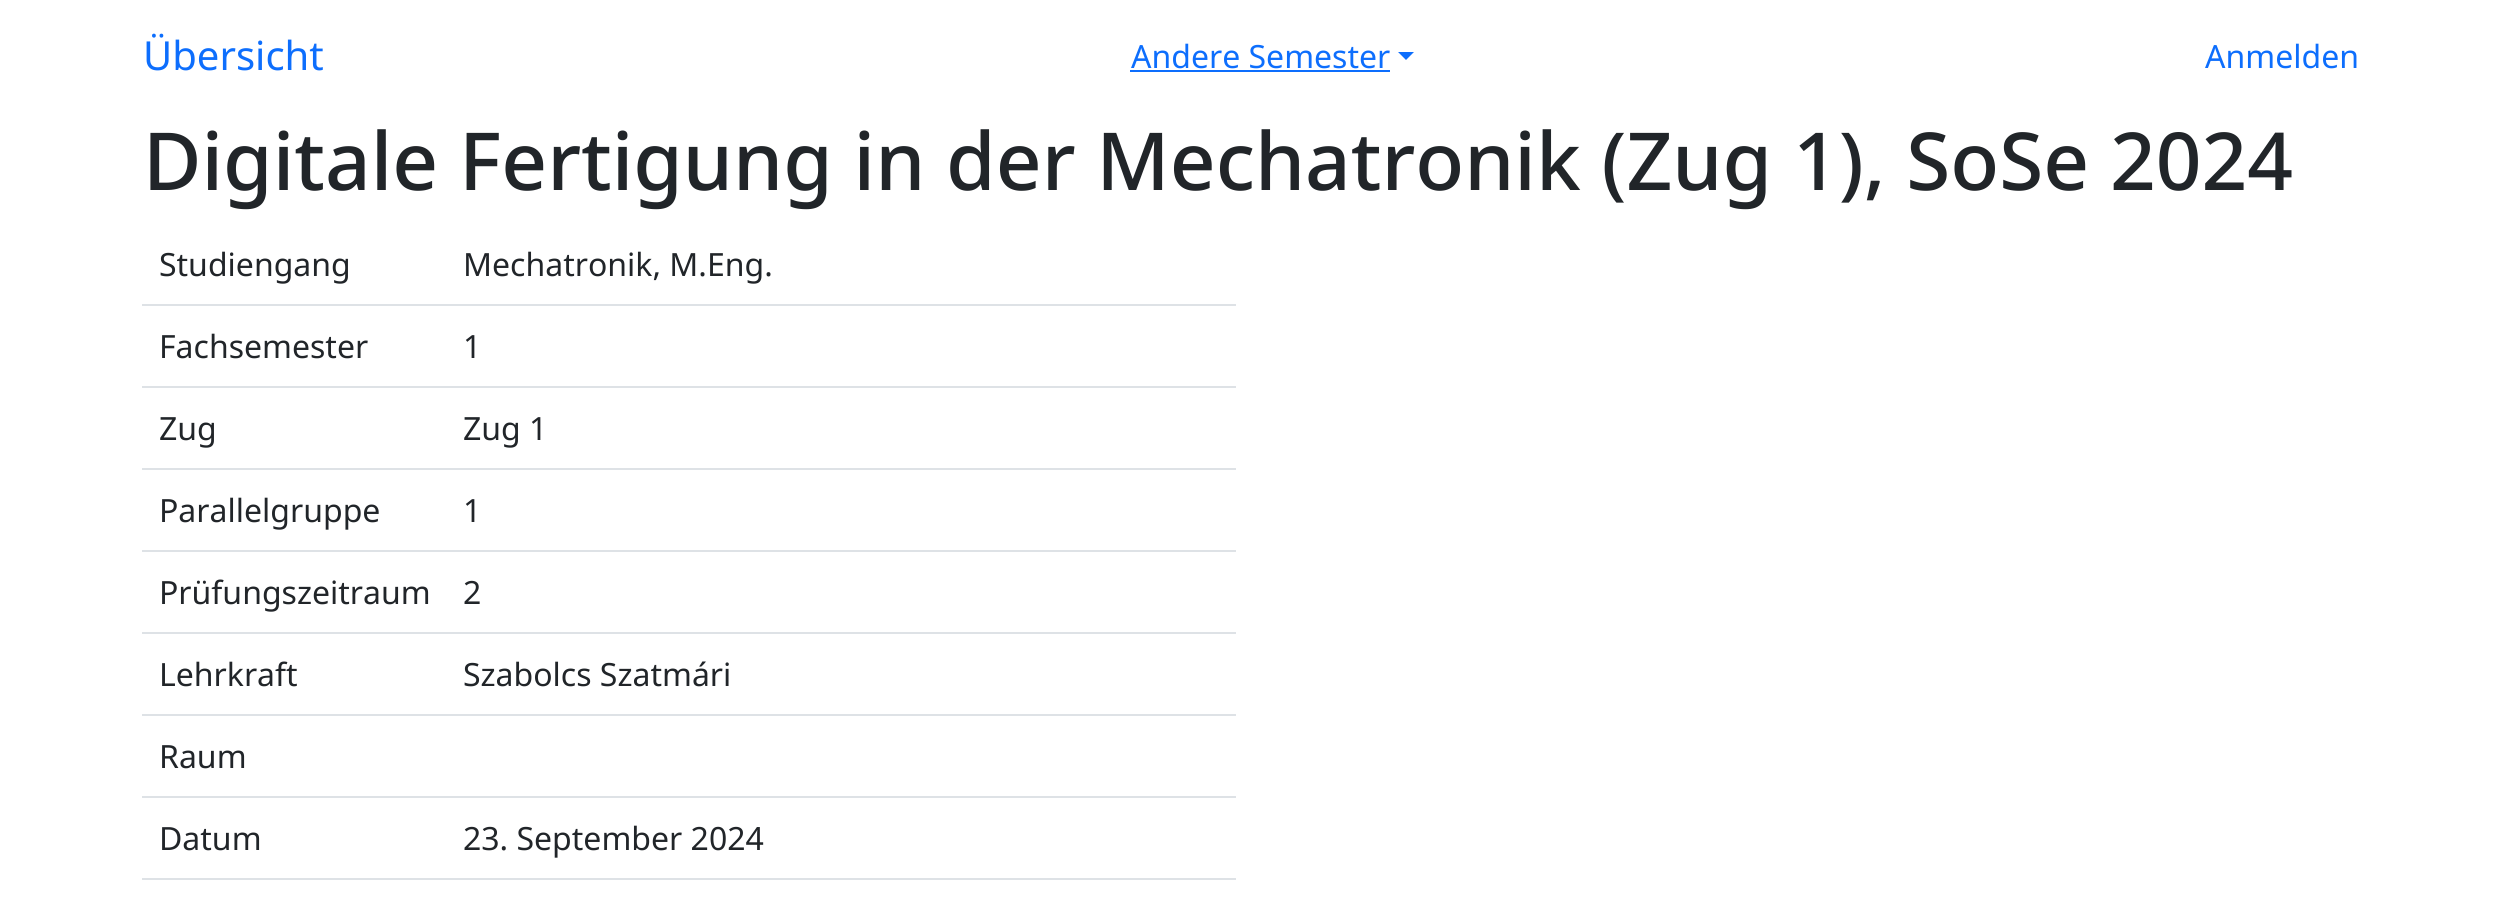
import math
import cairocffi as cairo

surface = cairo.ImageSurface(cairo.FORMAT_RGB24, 2517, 923)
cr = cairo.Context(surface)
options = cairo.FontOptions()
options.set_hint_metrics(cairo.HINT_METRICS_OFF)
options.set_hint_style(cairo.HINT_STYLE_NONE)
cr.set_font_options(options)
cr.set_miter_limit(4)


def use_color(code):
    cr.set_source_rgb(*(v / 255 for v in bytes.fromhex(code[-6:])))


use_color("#ffffff")
cr.paint()
cr.select_font_face("Noto Sans")
cr.set_font_size(40)
use_color("#0d6efd")
cr.move_to(143, 70)
cr.show_text("Übersicht")
cr.set_font_size(32)
cr.move_to(1131, 68)
cr.show_text("Andere Semester")
cr.rectangle(1130, 70, 260, 2)
cr.fill()
cr.new_path()
cr.move_to(1398, 52)
cr.line_to(1414, 52)
cr.line_to(1406, 60)
cr.close_path()
cr.fill()
cr.move_to(2205, 68)
cr.show_text("Anmelden")
cr.select_font_face("Noto Sans Medium")
cr.set_font_size(80)
use_color("#212529")
cr.move_to(143, 190)
cr.show_text("Digitale Fertigung in der Mechatronik (Zug 1), SoSe 2024")
cr.select_font_face("Noto Sans")
cr.set_font_size(32)
cr.move_to(159, 276)
cr.show_text("Studiengang")
use_color("#dee2e6")
cr.rectangle(142, 304, 1094, 2)
cr.fill()
use_color("#212529")
cr.move_to(463, 276)
cr.show_text("Mechatronik, M.Eng.")
cr.move_to(159, 358)
cr.show_text("Fachsemester")
use_color("#dee2e6")
cr.rectangle(142, 386, 1094, 2)
cr.fill()
use_color("#212529")
cr.move_to(463, 358)
cr.show_text("1")
cr.move_to(159, 440)
cr.show_text("Zug")
use_color("#dee2e6")
cr.rectangle(142, 468, 1094, 2)
cr.fill()
use_color("#212529")
cr.move_to(463, 440)
cr.show_text("Zug 1")
cr.move_to(159, 522)
cr.show_text("Parallelgruppe")
use_color("#dee2e6")
cr.rectangle(142, 550, 1094, 2)
cr.fill()
use_color("#212529")
cr.move_to(463, 522)
cr.show_text("1")
cr.move_to(159, 604)
cr.show_text("Prüfungszeitraum")
use_color("#dee2e6")
cr.rectangle(142, 632, 1094, 2)
cr.fill()
use_color("#212529")
cr.move_to(463, 604)
cr.show_text("2")
cr.move_to(159, 686)
cr.show_text("Lehrkraft")
use_color("#dee2e6")
cr.rectangle(142, 714, 1094, 2)
cr.fill()
use_color("#212529")
cr.move_to(463, 686)
cr.show_text("Szabolcs Szatmári")
cr.move_to(159, 768)
cr.show_text("Raum")
use_color("#dee2e6")
cr.rectangle(142, 796, 1094, 2)
cr.fill()
use_color("#212529")
cr.move_to(159, 850)
cr.show_text("Datum")
use_color("#dee2e6")
cr.rectangle(142, 878, 1094, 2)
cr.fill()
use_color("#212529")
cr.move_to(463, 850)
cr.show_text("23. September 2024")
surface.write_to_png("result.png")
